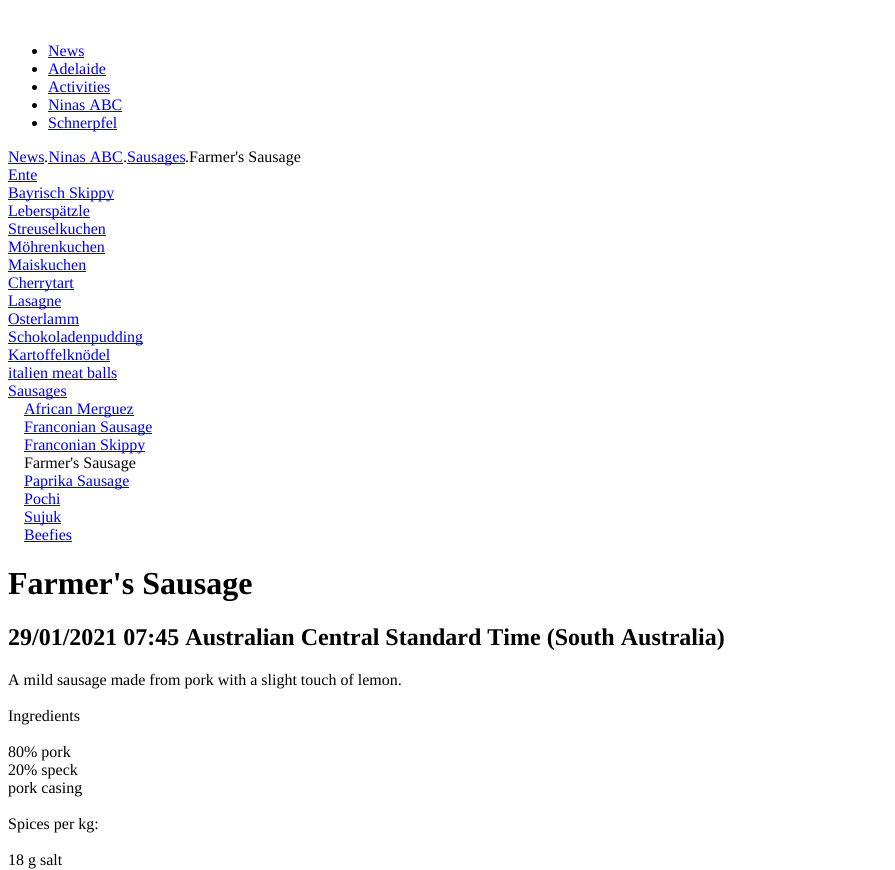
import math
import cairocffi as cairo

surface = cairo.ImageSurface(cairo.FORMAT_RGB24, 895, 870)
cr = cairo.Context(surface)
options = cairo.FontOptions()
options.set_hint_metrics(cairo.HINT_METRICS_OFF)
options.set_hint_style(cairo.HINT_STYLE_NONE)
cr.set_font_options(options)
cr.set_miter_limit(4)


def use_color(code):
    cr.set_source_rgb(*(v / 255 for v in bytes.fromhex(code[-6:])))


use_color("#ffffff")
cr.paint()
use_color("#000000")
cr.arc(34.5, 51.5, 2.5, 0, 2 * math.pi)
cr.fill()
cr.select_font_face("Liberation Serif")
cr.set_font_size(16)
use_color("#0000ee")
cr.move_to(48, 56)
cr.show_text("News")
cr.rectangle(48, 57, 36, 1)
cr.fill()
use_color("#000000")
cr.arc(34.5, 69.5, 2.5, 0, 2 * math.pi)
cr.fill()
use_color("#0000ee")
cr.move_to(48, 74)
cr.show_text("Adelaide")
cr.rectangle(48, 75, 58, 1)
cr.fill()
use_color("#000000")
cr.arc(34.5, 87.5, 2.5, 0, 2 * math.pi)
cr.fill()
use_color("#0000ee")
cr.move_to(48, 92)
cr.show_text("Activities")
cr.rectangle(48, 93, 62, 1)
cr.fill()
use_color("#000000")
cr.arc(34.5, 105.5, 2.5, 0, 2 * math.pi)
cr.fill()
use_color("#0000ee")
cr.move_to(48, 110)
cr.show_text("Ninas ABC")
cr.rectangle(48, 111, 74, 1)
cr.fill()
use_color("#000000")
cr.arc(34.5, 123.5, 2.5, 0, 2 * math.pi)
cr.fill()
use_color("#0000ee")
cr.rectangle(48, 129, 69, 1)
cr.fill()
cr.move_to(48, 128)
cr.show_text("Schnerpfel")
cr.move_to(8, 162)
cr.show_text("News Ninas ABC")
cr.rectangle(8, 163, 36, 1)
cr.fill()
cr.rectangle(127, 163, 58, 1)
cr.fill()
cr.move_to(127, 162)
cr.show_text("Sausages")
use_color("#000000")
cr.move_to(185, 162)
cr.show_text(".Farmer's Sausage")
cr.move_to(44, 162)
cr.show_text(".")
cr.move_to(123, 162)
cr.show_text(".")
use_color("#0000ee")
cr.rectangle(48, 163, 75, 1)
cr.fill()
cr.move_to(8, 180)
cr.show_text("Ente")
cr.rectangle(8, 181, 29, 1)
cr.fill()
cr.rectangle(8, 199, 106, 1)
cr.fill()
cr.move_to(8, 198)
cr.show_text("Bayrisch Skippy")
cr.rectangle(8, 217, 82, 1)
cr.fill()
cr.move_to(8, 216)
cr.show_text("Leberspätzle")
cr.move_to(8, 234)
cr.show_text("Streuselkuchen")
cr.rectangle(8, 235, 98, 1)
cr.fill()
cr.move_to(8, 252)
cr.show_text("Möhrenkuchen")
cr.rectangle(8, 253, 97, 1)
cr.fill()
cr.move_to(8, 270)
cr.show_text("Maiskuchen")
cr.rectangle(8, 271, 78, 1)
cr.fill()
cr.rectangle(8, 289, 66, 1)
cr.fill()
cr.move_to(8, 288)
cr.show_text("Cherrytart")
cr.rectangle(8, 307, 53, 1)
cr.fill()
cr.move_to(8, 306)
cr.show_text("Lasagne")
cr.move_to(8, 324)
cr.show_text("Osterlamm")
cr.rectangle(8, 325, 71, 1)
cr.fill()
cr.rectangle(8, 343, 135, 1)
cr.fill()
cr.move_to(8, 342)
cr.show_text("Schokoladenpudding")
cr.move_to(8, 360)
cr.show_text("Kartoffelknödel")
cr.rectangle(8, 361, 102, 1)
cr.fill()
cr.move_to(8, 378)
cr.show_text("italien meat balls")
cr.rectangle(8, 379, 109, 1)
cr.fill()
cr.rectangle(8, 397, 59, 1)
cr.fill()
cr.move_to(8, 396)
cr.show_text("Sausages")
cr.rectangle(24, 415, 110, 1)
cr.fill()
cr.move_to(24, 414)
cr.show_text("African Merguez")
cr.rectangle(24, 433, 128, 1)
cr.fill()
cr.move_to(24, 432)
cr.show_text("Franconian Sausage")
cr.rectangle(24, 451, 121, 1)
cr.fill()
cr.move_to(24, 450)
cr.show_text("Franconian Skippy")
use_color("#000000")
cr.move_to(24, 468)
cr.show_text("Farmer's Sausage")
use_color("#0000ee")
cr.rectangle(24, 487, 105, 1)
cr.fill()
cr.move_to(24, 486)
cr.show_text("Paprika Sausage")
cr.move_to(24, 504)
cr.show_text("Pochi")
cr.rectangle(24, 505, 36, 1)
cr.fill()
cr.rectangle(24, 523, 37, 1)
cr.fill()
cr.move_to(24, 522)
cr.show_text("Sujuk")
cr.move_to(24, 540)
cr.show_text("Beefies")
cr.rectangle(24, 541, 48, 1)
cr.fill()
cr.select_font_face("Liberation Serif", cairo.FONT_SLANT_NORMAL, cairo.FONT_WEIGHT_BOLD)
cr.set_font_size(32)
use_color("#000000")
cr.move_to(8, 594)
cr.show_text("Farmer's Sausage")
cr.set_font_size(24)
cr.move_to(8, 645)
cr.show_text("29/01/2021 07:45 Australian Central Standard Time (South Australia)")
cr.select_font_face("Liberation Serif")
cr.set_font_size(16)
cr.move_to(8, 685)
cr.show_text("A mild sausage made from pork with a slight touch of lemon.")
cr.move_to(8, 721)
cr.show_text("Ingredients")
cr.move_to(8, 757)
cr.show_text("80% pork")
cr.move_to(8, 775)
cr.show_text("20% speck")
cr.move_to(8, 793)
cr.show_text("pork casing")
cr.move_to(8, 829)
cr.show_text("Spices per kg:")
cr.move_to(8, 865)
cr.show_text("18 g salt")
surface.write_to_png("result.png")
